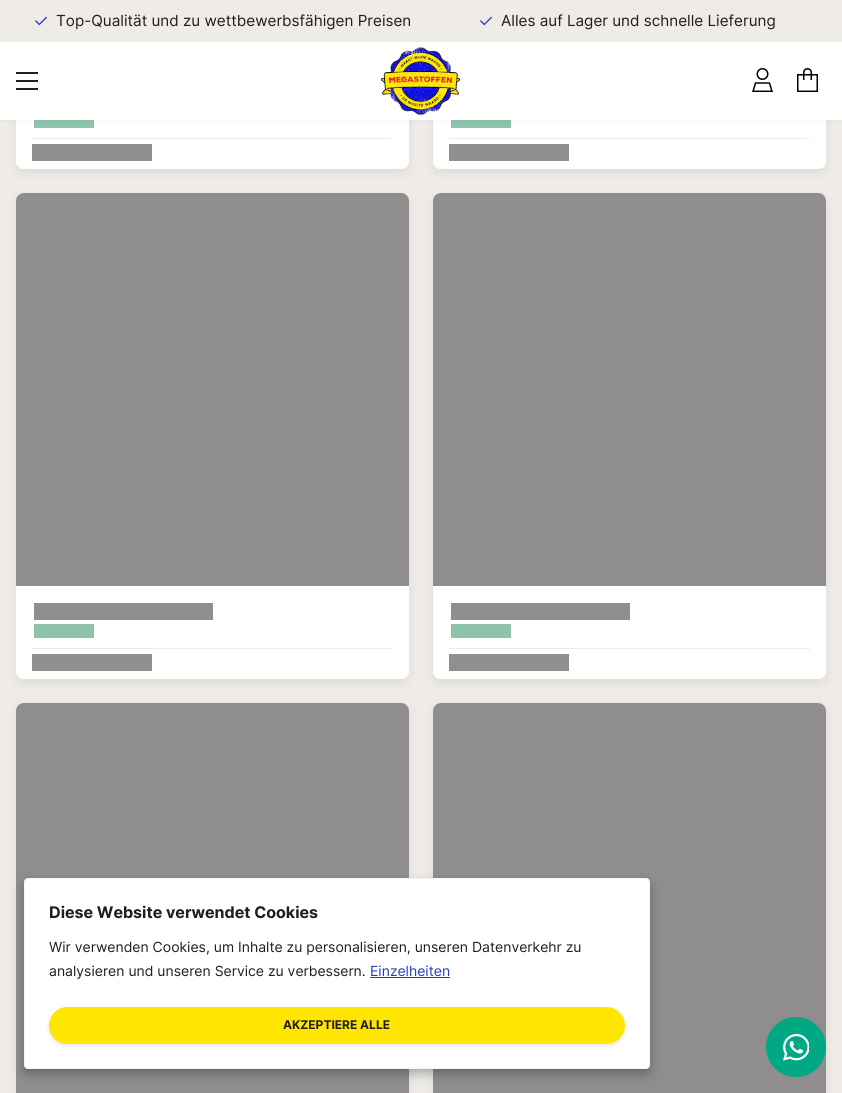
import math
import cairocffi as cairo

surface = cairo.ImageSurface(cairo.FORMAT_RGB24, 842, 1093)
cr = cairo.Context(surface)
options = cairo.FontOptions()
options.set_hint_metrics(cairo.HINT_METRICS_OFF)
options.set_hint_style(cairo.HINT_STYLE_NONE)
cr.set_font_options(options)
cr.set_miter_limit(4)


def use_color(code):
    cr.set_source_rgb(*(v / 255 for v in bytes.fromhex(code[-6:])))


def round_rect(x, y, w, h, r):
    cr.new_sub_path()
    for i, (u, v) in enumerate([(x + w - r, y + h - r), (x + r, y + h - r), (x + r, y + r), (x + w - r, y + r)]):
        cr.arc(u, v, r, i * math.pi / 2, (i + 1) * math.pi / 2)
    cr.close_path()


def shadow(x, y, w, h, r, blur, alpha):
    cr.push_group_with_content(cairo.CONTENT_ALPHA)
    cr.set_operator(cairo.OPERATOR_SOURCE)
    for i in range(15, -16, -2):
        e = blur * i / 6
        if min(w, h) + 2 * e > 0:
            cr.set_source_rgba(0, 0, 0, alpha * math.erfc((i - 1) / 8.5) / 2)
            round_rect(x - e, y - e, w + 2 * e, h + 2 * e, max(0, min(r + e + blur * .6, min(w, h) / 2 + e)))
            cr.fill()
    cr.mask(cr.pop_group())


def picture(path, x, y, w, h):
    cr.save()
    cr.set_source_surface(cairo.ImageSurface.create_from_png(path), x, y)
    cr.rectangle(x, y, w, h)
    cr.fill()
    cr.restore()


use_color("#efece7")
cr.paint()
use_color("#3d3c3b")
shadow(16, -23, 393, 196, 8, 5, 0.1)
use_color("#ffffff")
round_rect(16, -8, 393, 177, 8)
cr.fill()
use_color("#8cc3aa")
cr.rectangle(34, 120, 60, 8)
cr.fill()
use_color("#ffffff")
round_rect(16, 138, 393, 31, 8)
cr.fill()
use_color("#efece7")
cr.rectangle(32, 138, 361, 1)
cr.fill()
use_color("#908e8f")
cr.rectangle(32, 144, 120, 17)
cr.fill()
use_color("#3d3c3b")
shadow(433, -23, 393, 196, 8, 5, 0.1)
use_color("#ffffff")
round_rect(433, -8, 393, 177, 8)
cr.fill()
use_color("#8cc3aa")
cr.rectangle(451, 120, 60, 8)
cr.fill()
use_color("#ffffff")
round_rect(433, 138, 393, 31, 8)
cr.fill()
use_color("#efece7")
cr.rectangle(449, 138, 361, 1)
cr.fill()
use_color("#908e8f")
cr.rectangle(449, 144, 120, 17)
cr.fill()
use_color("#3d3c3b")
shadow(16, 197, 393, 486, 8, 5, 0.1)
use_color("#ffffff")
round_rect(16, 193, 393, 486, 8)
cr.fill()
cr.set_source_rgba(0.129, 0.114, 0.118, 0.5)
cr.new_path()
cr.move_to(24, 193)
cr.line_to(401, 193)
cr.curve_to(405.5, 193, 409, 196.5, 409, 201)
cr.line_to(409, 586)
cr.line_to(16, 586)
cr.line_to(16, 201)
cr.curve_to(16, 196.5, 19.5, 193, 24, 193)
cr.close_path()
cr.fill()
use_color("#908e8f")
cr.rectangle(34, 603, 179, 17)
cr.fill()
use_color("#8cc3aa")
cr.rectangle(34, 624, 60, 14)
cr.fill()
use_color("#ffffff")
round_rect(16, 648, 393, 31, 8)
cr.fill()
use_color("#efece7")
cr.rectangle(32, 648, 361, 1)
cr.fill()
use_color("#908e8f")
cr.rectangle(32, 654, 120, 17)
cr.fill()
use_color("#3d3c3b")
shadow(433, 197, 393, 486, 8, 5, 0.1)
use_color("#ffffff")
round_rect(433, 193, 393, 486, 8)
cr.fill()
cr.set_source_rgba(0.129, 0.114, 0.118, 0.5)
cr.new_path()
cr.move_to(441, 193)
cr.line_to(818, 193)
cr.curve_to(822.5, 193, 826, 196.5, 826, 201)
cr.line_to(826, 586)
cr.line_to(433, 586)
cr.line_to(433, 201)
cr.curve_to(433, 196.5, 436.5, 193, 441, 193)
cr.close_path()
cr.fill()
use_color("#908e8f")
cr.rectangle(451, 603, 179, 17)
cr.fill()
use_color("#8cc3aa")
cr.rectangle(451, 624, 60, 14)
cr.fill()
use_color("#ffffff")
round_rect(433, 648, 393, 31, 8)
cr.fill()
use_color("#efece7")
cr.rectangle(449, 648, 361, 1)
cr.fill()
use_color("#908e8f")
cr.rectangle(449, 654, 120, 17)
cr.fill()
use_color("#3d3c3b")
shadow(16, 707, 393, 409, 8, 5, 0.1)
use_color("#ffffff")
round_rect(16, 703, 393, 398, 8)
cr.fill()
cr.set_source_rgba(0.129, 0.114, 0.118, 0.5)
cr.new_path()
cr.move_to(24, 703)
cr.line_to(401, 703)
cr.curve_to(405.5, 703, 409, 706.5, 409, 711)
cr.line_to(409, 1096)
cr.line_to(16, 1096)
cr.line_to(16, 711)
cr.curve_to(16, 706.5, 19.5, 703, 24, 703)
cr.close_path()
cr.fill()
use_color("#3d3c3b")
shadow(433, 707, 393, 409, 8, 5, 0.1)
use_color("#ffffff")
round_rect(433, 703, 393, 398, 8)
cr.fill()
cr.set_source_rgba(0.129, 0.114, 0.118, 0.5)
cr.new_path()
cr.move_to(441, 703)
cr.line_to(818, 703)
cr.curve_to(822.5, 703, 826, 706.5, 826, 711)
cr.line_to(826, 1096)
cr.line_to(433, 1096)
cr.line_to(433, 711)
cr.curve_to(433, 706.5, 436.5, 703, 441, 703)
cr.close_path()
cr.fill()
use_color("#000000")
shadow(0, 0, 842, 120, 0, 1.5, 0.07)
use_color("#ffffff")
cr.rectangle(0, 42, 842, 78)
cr.fill()
use_color("#efece7")
cr.rectangle(0, 0, 842, 42)
cr.fill()
picture("img1.png", 35, 16, 12, 10)
cr.select_font_face("Inter")
cr.set_font_size(15.25)
use_color("#211d1e")
cr.move_to(56, 26)
cr.show_text("Top-Qualität und zu wettbewerbsfähigen Preisen")
picture("img1.png", 480, 16, 12, 10)
cr.move_to(501, 26)
cr.show_text("Alles auf Lager und schnelle Lieferung")
cr.rectangle(16, 72, 22, 2)
cr.fill()
cr.rectangle(16, 80, 22, 2)
cr.fill()
cr.rectangle(16, 88, 22, 2)
cr.fill()
picture("img2.png", 381, 47, 80, 68)
picture("img3.png", 752, 68, 21, 24)
picture("img4.png", 797, 68, 21, 24)
use_color("#00a884")
cr.arc(796, 1047, 30, 0, 2 * math.pi)
cr.fill()
picture("img5.png", 783, 1033, 26, 28)
use_color("#00141c")
shadow(24, 883, 626, 191, 4, 5, 0.3)
use_color("#ffffff")
round_rect(24.5, 878.5, 625, 190, 3.5)
cr.fill_preserve()
use_color("#f6f5f2")
cr.set_line_width(1)
cr.stroke()
cr.select_font_face("Inter", cairo.FONT_SLANT_NORMAL, cairo.FONT_WEIGHT_BOLD)
cr.set_font_size(16)
use_color("#211d1e")
cr.move_to(49, 918)
cr.show_text("Diese Website verwendet Cookies")
cr.select_font_face("Inter")
cr.set_font_size(14)
cr.move_to(49, 952)
cr.show_text("Wir verwenden Cookies, um Inhalte zu personalisieren, unseren Datenverkehr zu")
cr.move_to(49, 976)
cr.show_text("analysieren und unseren Service zu verbessern.")
use_color("#223dc7")
cr.move_to(370, 976)
cr.show_text("Einzelheiten")
cr.rectangle(370, 977, 80, 1)
cr.fill()
use_color("#000000")
shadow(49, 1009, 576, 37, 18.5, 2, 0.1)
use_color("#ffe600")
round_rect(49, 1007, 576, 37, 18.5)
cr.fill()
cr.select_font_face("Inter", cairo.FONT_SLANT_NORMAL, cairo.FONT_WEIGHT_BOLD)
cr.set_font_size(12)
use_color("#211d1e")
cr.move_to(283, 1029)
cr.show_text("AKZEPTIERE ALLE")
surface.write_to_png("result.png")
